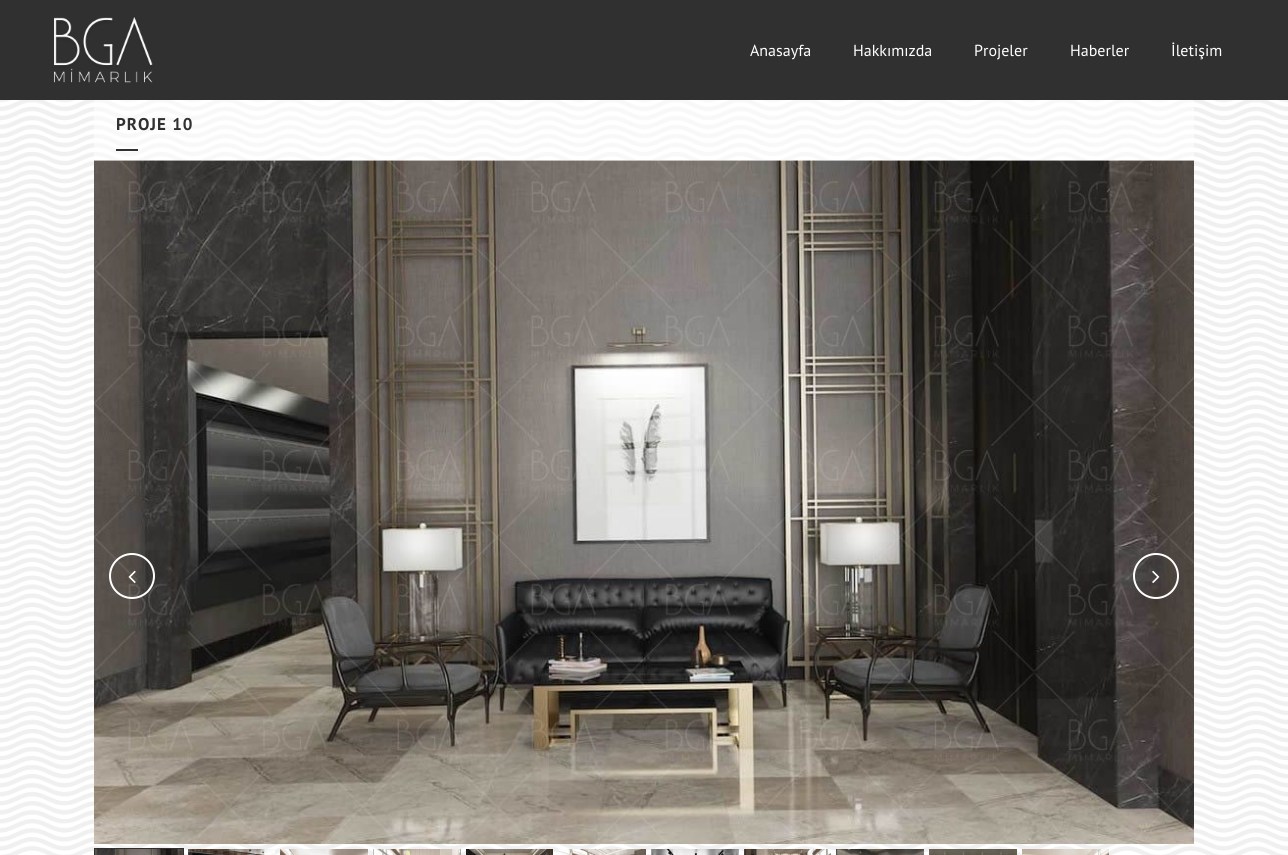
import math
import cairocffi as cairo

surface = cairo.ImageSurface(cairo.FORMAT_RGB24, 1288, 855)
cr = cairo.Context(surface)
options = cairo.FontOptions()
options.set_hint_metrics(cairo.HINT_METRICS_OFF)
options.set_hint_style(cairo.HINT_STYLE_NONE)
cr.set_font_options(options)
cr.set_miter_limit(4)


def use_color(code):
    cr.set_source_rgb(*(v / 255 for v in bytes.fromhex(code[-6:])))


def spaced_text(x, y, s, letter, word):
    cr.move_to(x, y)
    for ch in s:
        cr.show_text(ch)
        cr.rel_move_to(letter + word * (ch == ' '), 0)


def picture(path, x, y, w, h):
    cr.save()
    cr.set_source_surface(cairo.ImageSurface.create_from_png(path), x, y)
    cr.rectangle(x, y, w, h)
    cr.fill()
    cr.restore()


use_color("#ffffff")
cr.paint()
use_color("#303030")
cr.rectangle(0, 0, 1288, 100)
cr.fill()
picture("img1.png", 54, 17, 99, 66)
cr.select_font_face("PT Sans")
cr.set_font_size(16)
use_color("#ffffff")
cr.move_to(750, 56)
cr.show_text("Anasayfa")
cr.move_to(853, 56)
cr.show_text("Hakkımızda")
cr.move_to(974, 56)
cr.show_text("Projeler")
cr.move_to(1070, 56)
cr.show_text("Haberler")
cr.move_to(1171, 56)
cr.show_text("İletişim")
picture("img2.png", 0, 100, 1288, 755)
picture("img3.png", 94, 160, 1100, 684)
cr.arc(132, 576, 22, 0, 2 * math.pi)
cr.stroke()
picture("img4.png", 128, 570, 8, 13)
cr.arc(1156, 576, 22, 0, 2 * math.pi)
cr.stroke()
picture("img5.png", 1152, 570, 8, 13)
cr.rectangle(94.5, 848.5, 89, 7)
use_color("#303030")
cr.set_line_width(1)
cr.stroke()
picture("img6.png", 95, 849, 88, 6)
picture("img7.png", 188, 849, 87, 6)
picture("img8.png", 280, 849, 88, 6)
picture("img9.png", 373, 849, 88, 6)
picture("img10.png", 466, 849, 87, 6)
picture("img11.png", 558, 849, 88, 6)
picture("img12.png", 651, 849, 88, 6)
picture("img13.png", 744, 849, 87, 6)
picture("img14.png", 836, 849, 88, 6)
picture("img15.png", 929, 849, 88, 6)
picture("img16.png", 1022, 849, 87, 6)
cr.set_source_rgba(1, 1, 1, 0.56)
cr.rectangle(94, 100, 1100, 61)
cr.fill()
cr.select_font_face("PT Sans", cairo.FONT_SLANT_NORMAL, cairo.FONT_WEIGHT_BOLD)
cr.set_font_size(17)
use_color("#303030")
spaced_text(116, 130, "PROJE 10", 1, 0)
cr.rectangle(116, 149, 22, 2)
cr.fill()
surface.write_to_png("result.png")
